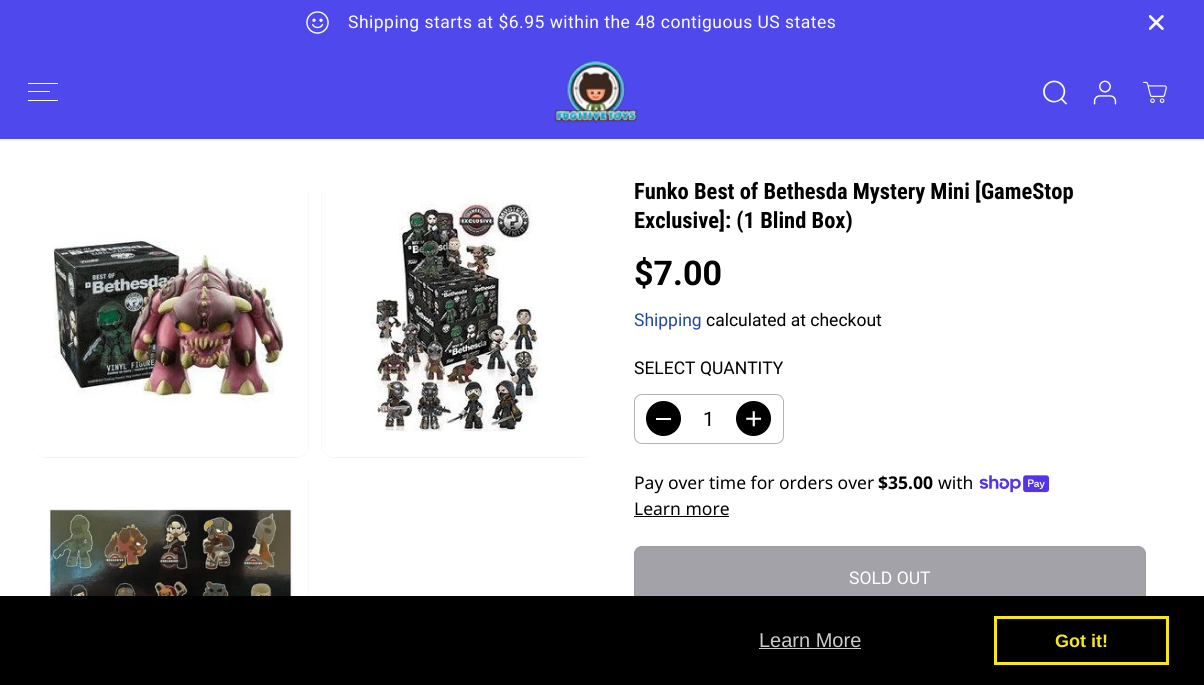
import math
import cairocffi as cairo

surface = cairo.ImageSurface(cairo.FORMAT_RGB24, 1204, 685)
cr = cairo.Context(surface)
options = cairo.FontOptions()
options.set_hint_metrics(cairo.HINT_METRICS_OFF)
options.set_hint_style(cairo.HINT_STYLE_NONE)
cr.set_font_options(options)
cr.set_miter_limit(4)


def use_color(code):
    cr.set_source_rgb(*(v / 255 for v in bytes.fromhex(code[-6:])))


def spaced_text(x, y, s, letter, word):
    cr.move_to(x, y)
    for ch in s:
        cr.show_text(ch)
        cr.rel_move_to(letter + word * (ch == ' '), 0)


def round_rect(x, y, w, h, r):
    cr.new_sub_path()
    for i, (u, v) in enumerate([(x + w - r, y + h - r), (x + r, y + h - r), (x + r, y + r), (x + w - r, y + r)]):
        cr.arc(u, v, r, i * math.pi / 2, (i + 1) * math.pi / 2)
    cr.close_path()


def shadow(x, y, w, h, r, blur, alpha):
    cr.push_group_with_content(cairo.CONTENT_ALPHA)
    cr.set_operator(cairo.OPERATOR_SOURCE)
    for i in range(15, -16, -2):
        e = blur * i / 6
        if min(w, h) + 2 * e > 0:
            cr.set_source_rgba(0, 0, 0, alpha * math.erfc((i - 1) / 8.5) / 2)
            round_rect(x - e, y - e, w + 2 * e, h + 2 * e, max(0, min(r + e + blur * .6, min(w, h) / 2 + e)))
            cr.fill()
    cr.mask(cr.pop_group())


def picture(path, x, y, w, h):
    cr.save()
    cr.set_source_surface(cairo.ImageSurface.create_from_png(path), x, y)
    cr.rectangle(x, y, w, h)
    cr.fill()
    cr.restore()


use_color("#ffffff")
cr.paint()
use_color("#4f48ec")
cr.rectangle(0, 0, 1204, 139)
cr.fill()
picture("img1.png", 306, 11, 23, 23)
cr.select_font_face("Roboto")
cr.set_font_size(17.5)
use_color("#ffffff")
spaced_text(348, 28, "Shipping starts at $6.95 within the 48 contiguous US states", 0.5, 0)
picture("img2.png", 1149, 15, 15, 15)
cr.save()
cr.rectangle(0, 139, 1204, 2)
cr.clip()
use_color("#000000")
shadow(0, 48, 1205, 93, 0, 1, 0.05)
cr.restore()
cr.rectangle(28, 91, 22, 1)
cr.fill()
cr.rectangle(28, 83, 30, 1)
cr.fill()
cr.rectangle(28, 100, 30, 1)
cr.fill()
picture("img3.png", 554, 60, 84, 63)
picture("img4.png", 1043, 80, 24, 25)
picture("img5.png", 1093, 80, 24, 25)
picture("img6.png", 1143, 81, 24, 22)
use_color("#efeef1")
round_rect(34, 183, 275, 275, 13)
cr.fill()
picture("img7.png", 34, 183, 275, 275)
round_rect(321, 183, 275, 275, 13)
cr.fill()
picture("img8.png", 321, 183, 275, 275)
round_rect(34, 470, 275, 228, 13)
cr.fill()
picture("img9.png", 34, 470, 275, 126)
cr.select_font_face("Roboto Condensed", cairo.FONT_SLANT_NORMAL, cairo.FONT_WEIGHT_BOLD)
cr.set_font_size(22.5)
use_color("#000000")
cr.move_to(634, 199)
cr.show_text("Funko Best of Bethesda Mystery Mini [GameStop")
cr.move_to(634, 228)
cr.show_text("Exclusive]: (1 Blind Box)")
cr.select_font_face("Roboto", cairo.FONT_SLANT_NORMAL, cairo.FONT_WEIGHT_BOLD)
cr.set_font_size(34)
cr.move_to(634, 285)
cr.show_text("$7.00")
cr.select_font_face("Roboto")
cr.set_font_size(17.5)
use_color("#22489e")
cr.move_to(634, 326)
cr.show_text("Shipping")
use_color("#000000")
cr.move_to(706, 326)
cr.show_text("calculated at checkout")
cr.move_to(634, 374)
cr.show_text("SELECT QUANTITY")
round_rect(634.5, 394.5, 149, 49, 7.5)
use_color("#b3b3b3")
cr.set_line_width(1)
cr.stroke()
use_color("#000000")
cr.arc(663.5, 418.5, 17.5, 0, 2 * math.pi)
cr.fill()
use_color("#ffffff")
cr.rectangle(656, 418, 15, 2)
cr.fill()
cr.set_font_size(20)
use_color("#000000")
cr.move_to(703, 426)
cr.show_text("1")
cr.new_path()
cr.arc(753.5, 418.5, 17.5, 0, 2 * math.pi)
cr.fill()
picture("img10.png", 746, 411, 15, 16)
cr.select_font_face("Noto Sans")
cr.set_font_size(17.5)
cr.move_to(634, 489)
cr.show_text("Pay over time for orders over")
cr.select_font_face("Noto Sans", cairo.FONT_SLANT_NORMAL, cairo.FONT_WEIGHT_BOLD)
cr.move_to(878, 489)
cr.show_text("$35.00")
cr.select_font_face("Noto Sans")
cr.move_to(938, 489)
cr.show_text("with")
picture("img11.png", 979, 475, 70, 18)
cr.move_to(634, 515)
cr.show_text("Learn more")
cr.rectangle(634, 516, 95, 1)
cr.fill()
use_color("#a3a2a9")
round_rect(634.5, 546.5, 511, 62, 7.5)
cr.fill_preserve()
use_color("#9a9ca9")
cr.stroke()
cr.select_font_face("Roboto")
use_color("#ffffff")
cr.move_to(849, 584)
cr.show_text("SOLD OUT")
use_color("#000000")
cr.rectangle(0, 596, 1204, 89)
cr.fill()
cr.select_font_face("Liberation Sans")
cr.set_font_size(20)
use_color("#cccccc")
cr.move_to(759, 647)
cr.show_text("Learn More")
cr.rectangle(759, 648, 102, 1)
cr.fill()
cr.rectangle(995.5, 617.5, 172, 46)
use_color("#f8e71c")
cr.set_line_width(3)
cr.stroke()
cr.select_font_face("Liberation Sans", cairo.FONT_SLANT_NORMAL, cairo.FONT_WEIGHT_BOLD)
cr.set_font_size(18)
cr.move_to(1055, 647)
cr.show_text("Got it!")
surface.write_to_png("result.png")
